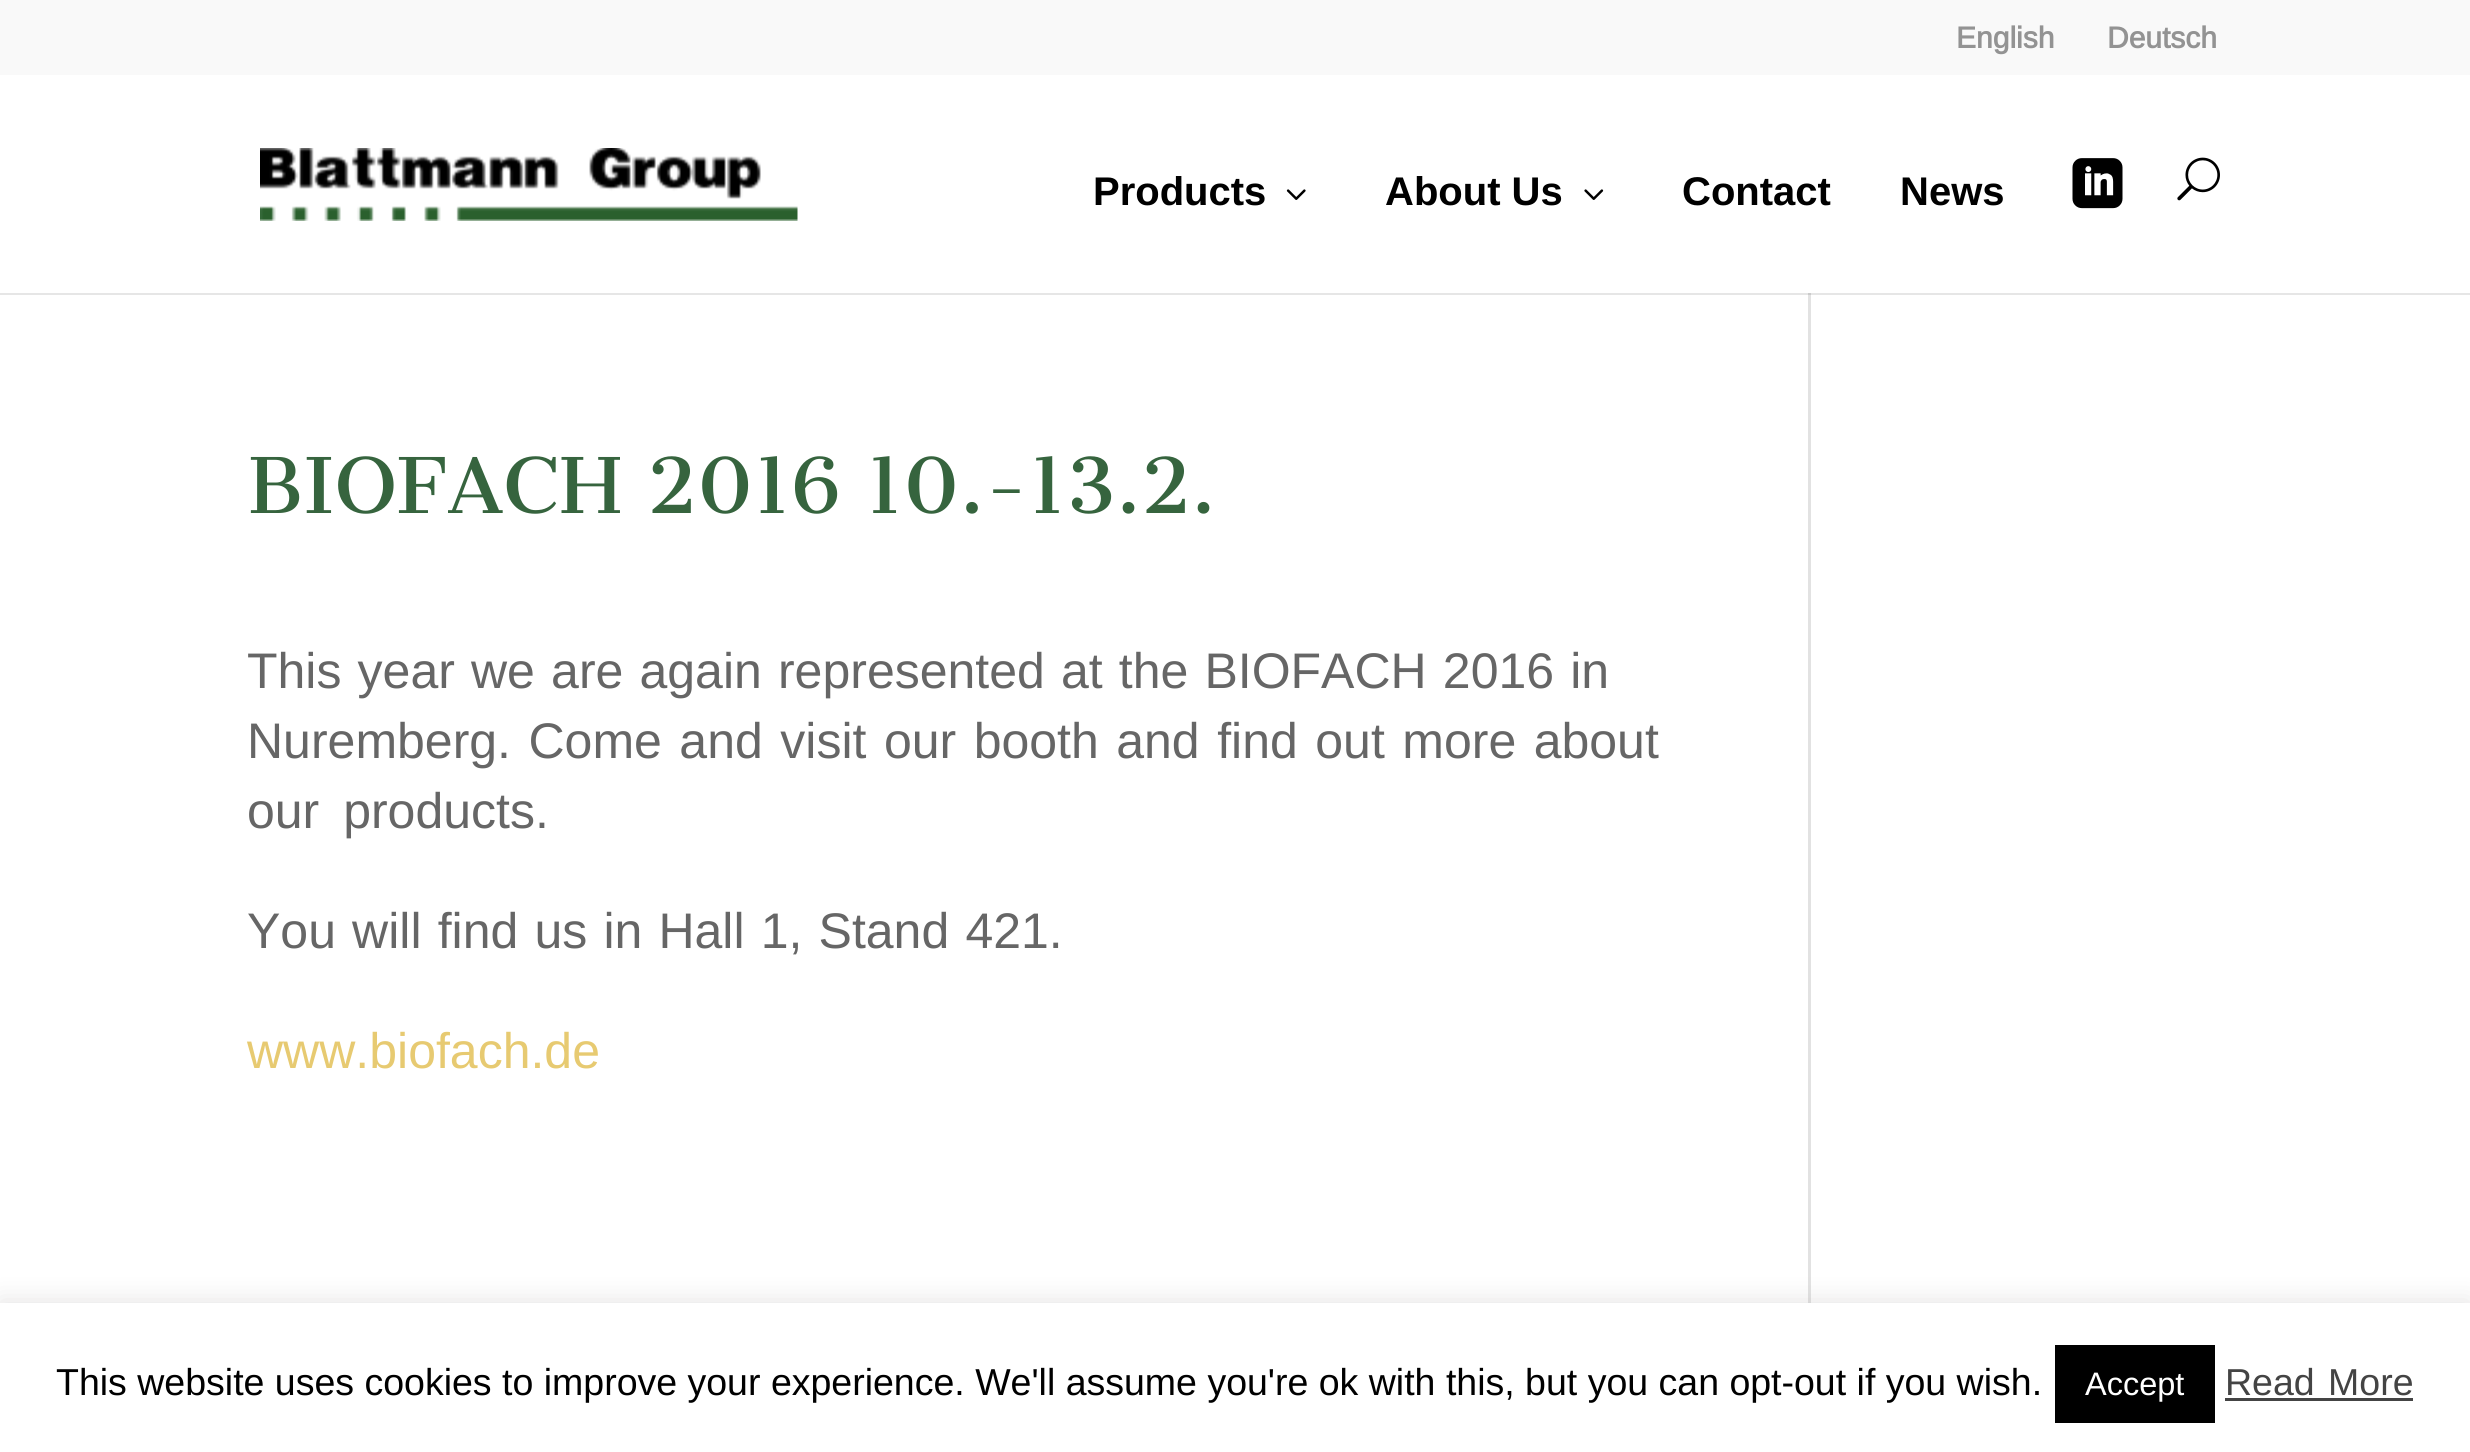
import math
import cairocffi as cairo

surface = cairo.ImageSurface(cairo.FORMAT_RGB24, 2470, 1452)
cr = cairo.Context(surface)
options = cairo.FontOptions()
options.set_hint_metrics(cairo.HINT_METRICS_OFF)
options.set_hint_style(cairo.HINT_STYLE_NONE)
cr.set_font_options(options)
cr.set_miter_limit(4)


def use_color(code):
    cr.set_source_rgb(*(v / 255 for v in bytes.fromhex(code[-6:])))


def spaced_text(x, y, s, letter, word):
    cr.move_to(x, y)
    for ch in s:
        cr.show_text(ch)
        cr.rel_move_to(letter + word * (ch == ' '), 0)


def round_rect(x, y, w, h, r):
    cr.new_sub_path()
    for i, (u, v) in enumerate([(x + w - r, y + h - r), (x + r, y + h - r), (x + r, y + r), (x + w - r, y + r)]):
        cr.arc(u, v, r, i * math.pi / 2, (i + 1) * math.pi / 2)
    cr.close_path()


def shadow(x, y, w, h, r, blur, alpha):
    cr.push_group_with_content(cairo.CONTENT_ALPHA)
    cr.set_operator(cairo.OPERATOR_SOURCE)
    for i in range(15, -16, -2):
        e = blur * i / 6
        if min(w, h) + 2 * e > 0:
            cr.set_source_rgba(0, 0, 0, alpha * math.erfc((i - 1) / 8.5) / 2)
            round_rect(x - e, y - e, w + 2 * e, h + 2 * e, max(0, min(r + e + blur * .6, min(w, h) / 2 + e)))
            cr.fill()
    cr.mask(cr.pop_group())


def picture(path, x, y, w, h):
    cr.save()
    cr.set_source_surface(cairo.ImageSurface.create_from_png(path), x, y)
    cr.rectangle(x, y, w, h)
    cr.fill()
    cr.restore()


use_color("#ffffff")
cr.paint()
use_color("#f9f9f9")
cr.rectangle(0, 0, 2470, 75)
cr.fill()
cr.select_font_face("Arimo", cairo.FONT_SLANT_NORMAL, cairo.FONT_WEIGHT_BOLD)
cr.set_font_size(30)
use_color("#939393")
cr.move_to(1956, 48)
cr.show_text("English")
cr.move_to(2107, 48)
cr.show_text("Deutsch")
picture("img1.png", 260, 148, 538, 73)
cr.select_font_face("Liberation Sans", cairo.FONT_SLANT_NORMAL, cairo.FONT_WEIGHT_BOLD)
cr.set_font_size(40)
use_color("#000000")
cr.move_to(1093, 205)
cr.show_text("Products")
picture("img2.png", 1286, 189, 20, 11)
cr.move_to(1385, 205)
cr.show_text("About Us")
picture("img3.png", 1584, 189, 20, 11)
cr.move_to(1682, 205)
cr.show_text("Contact")
cr.move_to(1900, 205)
cr.show_text("News")
picture("img4.png", 2072, 158, 51, 51)
picture("img5.png", 2177, 157, 43, 44)
use_color("#e6e6e6")
cr.rectangle(0, 293, 2470, 2)
cr.fill()
cr.select_font_face("Cantata One")
cr.set_font_size(75)
use_color("#36643e")
cr.move_to(247, 513)
cr.show_text("BIOFACH 2016 10.-13.2.")
cr.select_font_face("Arimo")
cr.set_font_size(50)
use_color("#666666")
spaced_text(247, 688, "This year we are again represented at the BIOFACH 2016 in", 0, 2.25)
spaced_text(247, 758, "Nuremberg. Come and visit our booth and find out more about", 0, 3.6)
spaced_text(247, 828, "our products.", 0, 10)
spaced_text(247, 948, "You will find us in Hall 1, Stand 421.", 0, 2.25)
use_color("#e7ca71")
cr.move_to(247, 1068)
cr.show_text("www.biofach.de")
use_color("#e2e2e2")
cr.rectangle(1808, 293, 3, 1017)
cr.fill()
use_color("#cbcbcb")
cr.rectangle(1808, 293, 3, 2)
cr.fill()
use_color("#acabab")
shadow(0, 1300, 2470, 150, 0, 12.5, 0.3)
use_color("#ffffff")
cr.rectangle(0, 1303, 2470, 149)
cr.fill()
cr.set_font_size(37.5)
use_color("#000000")
cr.move_to(56, 1395)
cr.show_text("This website uses cookies to improve your experience. We'll assume you're ok with this, but you can opt-out if you wish.")
cr.rectangle(2055, 1345, 160, 78)
cr.fill()
cr.set_font_size(32.5)
use_color("#ffffff")
cr.move_to(2085, 1395)
cr.show_text("Accept")
cr.set_font_size(37.5)
use_color("#444444")
spaced_text(2225, 1395, "Read More", 0, 3)
cr.rectangle(2225, 1398, 188, 3)
cr.fill()
surface.write_to_png("result.png")
